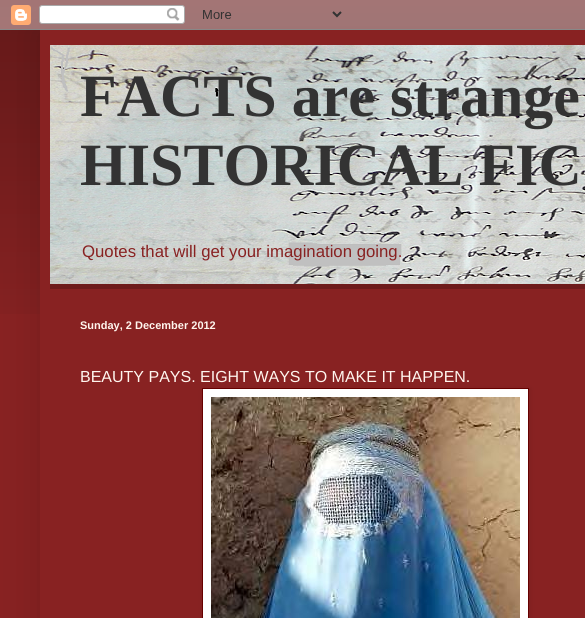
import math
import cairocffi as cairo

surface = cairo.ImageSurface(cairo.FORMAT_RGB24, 585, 618)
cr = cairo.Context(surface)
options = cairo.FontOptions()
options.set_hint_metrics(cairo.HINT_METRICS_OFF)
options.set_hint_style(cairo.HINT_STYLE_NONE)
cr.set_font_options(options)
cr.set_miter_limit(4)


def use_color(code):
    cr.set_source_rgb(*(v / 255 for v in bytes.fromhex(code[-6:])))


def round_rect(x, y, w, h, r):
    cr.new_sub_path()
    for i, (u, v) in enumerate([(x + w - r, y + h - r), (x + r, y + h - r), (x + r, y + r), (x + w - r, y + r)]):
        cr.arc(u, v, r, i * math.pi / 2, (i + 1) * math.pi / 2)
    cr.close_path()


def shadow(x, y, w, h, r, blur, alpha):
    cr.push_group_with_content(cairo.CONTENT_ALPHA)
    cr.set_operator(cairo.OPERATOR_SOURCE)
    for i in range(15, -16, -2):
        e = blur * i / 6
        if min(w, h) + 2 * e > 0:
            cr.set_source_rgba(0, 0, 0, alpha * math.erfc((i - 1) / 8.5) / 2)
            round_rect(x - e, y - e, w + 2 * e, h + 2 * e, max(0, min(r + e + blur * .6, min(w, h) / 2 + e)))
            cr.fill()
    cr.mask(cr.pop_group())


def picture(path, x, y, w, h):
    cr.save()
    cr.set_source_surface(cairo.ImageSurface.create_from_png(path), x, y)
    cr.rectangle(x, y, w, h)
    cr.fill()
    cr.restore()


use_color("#882222")
cr.paint()
picture("img1.png", 0, 0, 585, 314)
use_color("#000000")
shadow(40, 30, 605, 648, 0, 20, 0.15)
picture("img2.png", 0, 0, 585, 30)
use_color("#882222")
cr.rectangle(40, 30, 545, 588)
cr.fill()
picture("img3.png", 50, 284, 535, 5)
picture("img4.png", 50, 45, 535, 239)
cr.select_font_face("Liberation Serif", cairo.FONT_SLANT_NORMAL, cairo.FONT_WEIGHT_BOLD)
cr.set_font_size(60)
use_color("#333333")
cr.move_to(80, 116)
cr.show_text("FACTS are strange")
cr.move_to(80, 185)
cr.show_text("HISTORICAL FIC")
cr.select_font_face("Liberation Sans")
cr.set_font_size(16.75)
use_color("#882222")
cr.move_to(82, 257)
cr.show_text("Quotes that will get your imagination going.")
cr.select_font_face("Liberation Sans", cairo.FONT_SLANT_NORMAL, cairo.FONT_WEIGHT_BOLD)
cr.set_font_size(11)
use_color("#fff5ee")
cr.move_to(80, 329)
cr.show_text("Sunday, 2 December 2012")
cr.select_font_face("Liberation Sans")
cr.set_font_size(16)
cr.move_to(80, 382)
cr.show_text("BEAUTY PAYS. EIGHT WAYS TO MAKE IT HAPPEN.")
use_color("#000000")
shadow(203, 389, 327, 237, 0, 2.5, 0.1)
use_color("#ffffff")
cr.rectangle(202.5, 388.5, 326, 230)
cr.fill_preserve()
use_color("#660000")
cr.set_line_width(1)
cr.stroke()
picture("img5.png", 211, 397, 309, 221)
surface.write_to_png("result.png")
